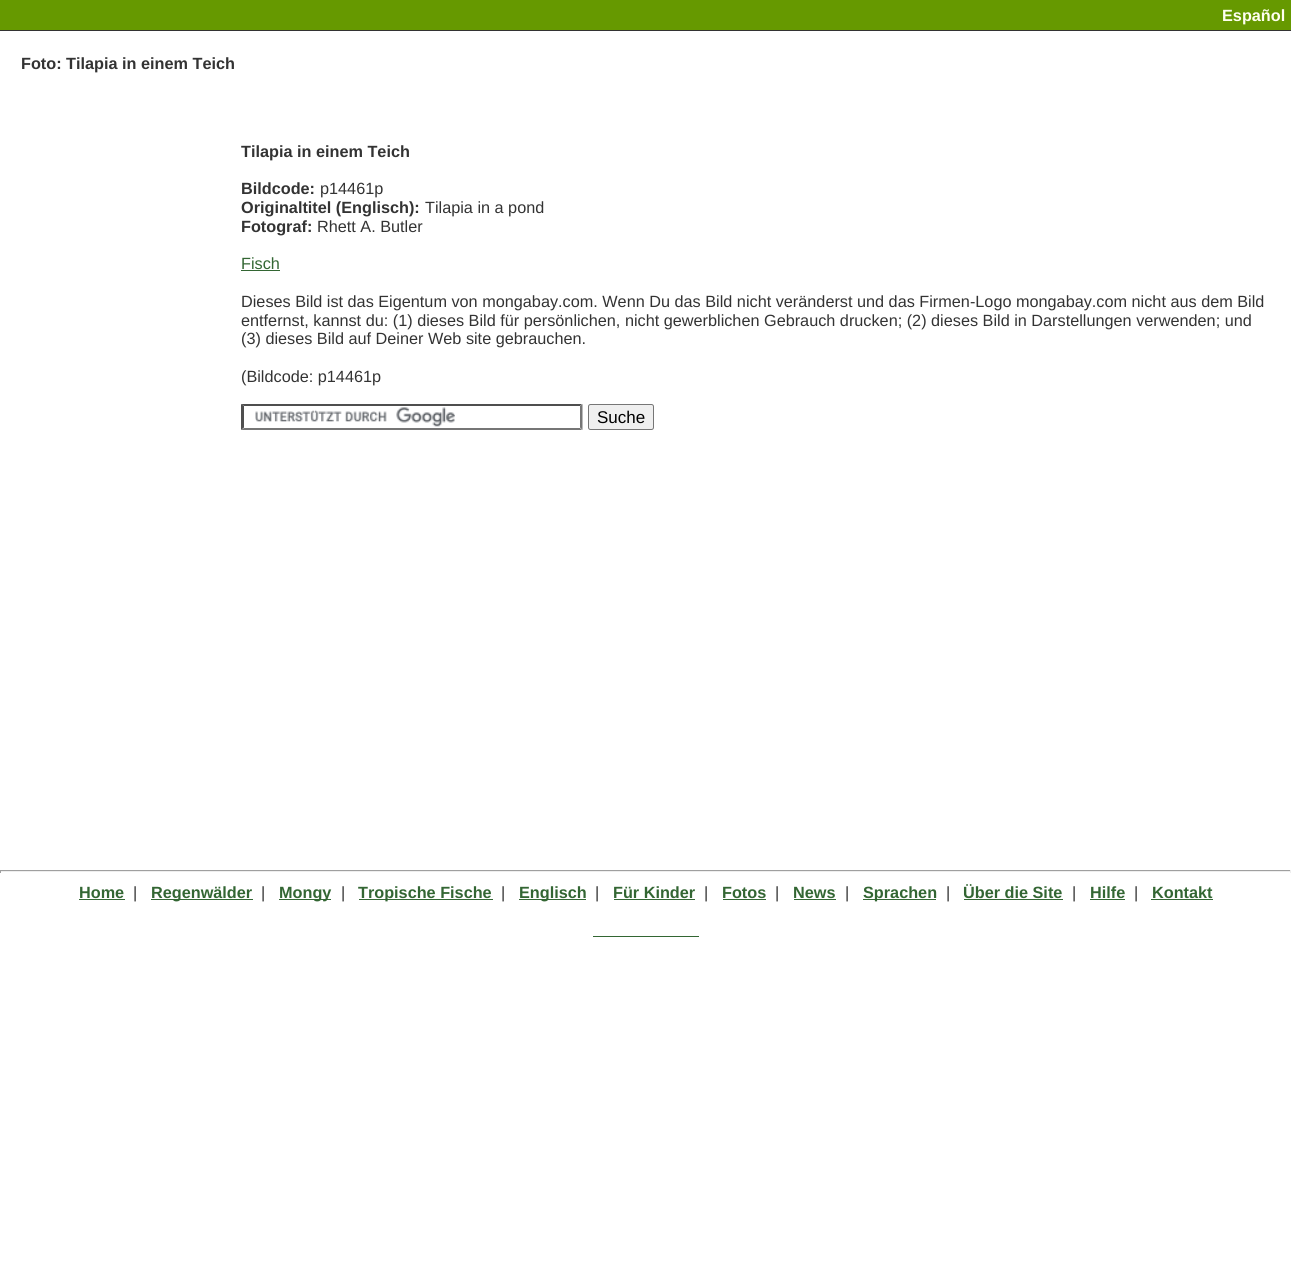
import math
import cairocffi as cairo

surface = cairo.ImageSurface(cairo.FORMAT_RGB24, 1291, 1271)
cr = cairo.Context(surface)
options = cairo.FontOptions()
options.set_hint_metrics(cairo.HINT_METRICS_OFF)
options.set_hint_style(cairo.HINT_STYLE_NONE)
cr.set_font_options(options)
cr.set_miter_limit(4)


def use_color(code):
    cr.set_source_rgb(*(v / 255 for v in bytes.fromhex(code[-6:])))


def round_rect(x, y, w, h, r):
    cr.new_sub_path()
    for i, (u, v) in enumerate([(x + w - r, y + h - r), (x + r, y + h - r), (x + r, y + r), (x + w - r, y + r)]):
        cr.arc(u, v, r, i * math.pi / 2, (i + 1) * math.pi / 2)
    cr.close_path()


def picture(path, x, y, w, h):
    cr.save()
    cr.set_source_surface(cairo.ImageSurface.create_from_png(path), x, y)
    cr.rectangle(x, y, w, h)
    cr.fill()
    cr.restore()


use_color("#ffffff")
cr.paint()
use_color("#669900")
cr.rectangle(0, 0, 1291, 30)
cr.fill()
cr.select_font_face("Liberation Sans", cairo.FONT_SLANT_NORMAL, cairo.FONT_WEIGHT_BOLD)
cr.set_font_size(16.25)
use_color("#fffff0")
cr.move_to(1222, 21)
cr.show_text("Español")
use_color("#333333")
cr.rectangle(0, 30, 1291, 1)
cr.fill()
cr.move_to(21, 69)
cr.show_text("Foto: Tilapia in einem Teich")
cr.move_to(241, 157)
cr.show_text("Tilapia in einem Teich")
cr.move_to(241, 194)
cr.show_text("Bildcode:")
cr.select_font_face("Liberation Sans")
cr.move_to(320, 194)
cr.show_text("p14461p")
cr.select_font_face("Liberation Sans", cairo.FONT_SLANT_NORMAL, cairo.FONT_WEIGHT_BOLD)
cr.move_to(241, 213)
cr.show_text("Originaltitel (Englisch):")
cr.select_font_face("Liberation Sans")
cr.move_to(425, 213)
cr.show_text("Tilapia in a pond")
cr.select_font_face("Liberation Sans", cairo.FONT_SLANT_NORMAL, cairo.FONT_WEIGHT_BOLD)
cr.move_to(241, 232)
cr.show_text("Fotograf:")
cr.select_font_face("Liberation Sans")
cr.move_to(317, 232)
cr.show_text("Rhett A. Butler")
use_color("#336633")
cr.move_to(241, 269)
cr.show_text("Fisch")
cr.rectangle(241, 270, 39, 1)
cr.fill()
use_color("#333333")
cr.move_to(241, 307)
cr.show_text("Dieses Bild ist das Eigentum von mongabay.com. Wenn Du das Bild nicht veränderst und das Firmen-Logo mongabay.com nicht aus dem Bild")
cr.move_to(241, 326)
cr.show_text("entfernst, kannst du: (1) dieses Bild für persönlichen, nicht gewerblichen Gebrauch drucken; (2) dieses Bild in Darstellungen verwenden; und")
cr.move_to(241, 344)
cr.show_text("(3) dieses Bild auf Deiner Web site gebrauchen.")
cr.move_to(241, 382)
cr.show_text("(Bildcode: p14461p")
picture("img1.png", 255, 407, 200, 20)
use_color("#4f4f4f")
cr.new_path()
cr.move_to(241, 404)
cr.line_to(582, 404)
cr.line_to(580, 406)
cr.line_to(244, 406)
cr.close_path()
cr.fill()
use_color("#767676")
cr.new_path()
cr.move_to(582.5, 404)
cr.line_to(582.5, 430)
cr.line_to(580, 427.5)
cr.line_to(580, 406)
cr.close_path()
cr.fill()
cr.new_path()
cr.move_to(582, 430)
cr.line_to(241, 430)
cr.line_to(244, 428)
cr.line_to(580, 428)
cr.close_path()
cr.fill()
use_color("#4f4f4f")
cr.new_path()
cr.move_to(241, 430)
cr.line_to(241, 404)
cr.line_to(244, 406)
cr.line_to(244, 427.5)
cr.close_path()
cr.fill()
use_color("#efefef")
round_rect(588.5, 404.5, 65, 25, 2)
cr.fill_preserve()
use_color("#767676")
cr.set_line_width(1)
cr.stroke()
cr.set_font_size(17)
use_color("#000000")
cr.move_to(597, 423)
cr.show_text("Suche")
use_color("#9f9f9f")
cr.rectangle(0, 870, 1291, 1)
cr.fill()
use_color("#eeeeee")
cr.rectangle(1290, 870, 1, 3)
cr.fill()
cr.rectangle(0, 871, 1291, 1)
cr.fill()
use_color("#9f9f9f")
cr.rectangle(0, 870, 1, 3)
cr.fill()
cr.select_font_face("Liberation Sans", cairo.FONT_SLANT_NORMAL, cairo.FONT_WEIGHT_BOLD)
cr.set_font_size(16.25)
use_color("#336633")
cr.move_to(79, 898)
cr.show_text("Home")
cr.rectangle(79, 899, 46, 1)
cr.fill()
cr.select_font_face("Liberation Sans")
use_color("#333333")
cr.move_to(133, 898)
cr.show_text("|")
use_color("#336633")
cr.rectangle(151, 899, 102, 1)
cr.fill()
cr.select_font_face("Liberation Sans", cairo.FONT_SLANT_NORMAL, cairo.FONT_WEIGHT_BOLD)
cr.move_to(151, 898)
cr.show_text("Regenwälder")
cr.select_font_face("Liberation Sans")
use_color("#333333")
cr.move_to(261, 898)
cr.show_text("|")
use_color("#336633")
cr.rectangle(279, 899, 52, 1)
cr.fill()
cr.select_font_face("Liberation Sans", cairo.FONT_SLANT_NORMAL, cairo.FONT_WEIGHT_BOLD)
cr.move_to(279, 898)
cr.show_text("Mongy")
cr.select_font_face("Liberation Sans")
use_color("#333333")
cr.move_to(341, 898)
cr.show_text("|")
use_color("#336633")
cr.rectangle(359, 899, 134, 1)
cr.fill()
cr.select_font_face("Liberation Sans", cairo.FONT_SLANT_NORMAL, cairo.FONT_WEIGHT_BOLD)
cr.move_to(358, 898)
cr.show_text("Tropische Fische")
cr.select_font_face("Liberation Sans")
use_color("#333333")
cr.move_to(501, 898)
cr.show_text("|")
use_color("#336633")
cr.rectangle(519, 899, 67, 1)
cr.fill()
cr.select_font_face("Liberation Sans", cairo.FONT_SLANT_NORMAL, cairo.FONT_WEIGHT_BOLD)
cr.move_to(519, 898)
cr.show_text("Englisch")
cr.select_font_face("Liberation Sans")
use_color("#333333")
cr.move_to(595, 898)
cr.show_text("|")
cr.select_font_face("Liberation Sans", cairo.FONT_SLANT_NORMAL, cairo.FONT_WEIGHT_BOLD)
use_color("#336633")
cr.move_to(613, 898)
cr.show_text("Für Kinder")
cr.rectangle(614, 899, 81, 1)
cr.fill()
cr.select_font_face("Liberation Sans")
use_color("#333333")
cr.move_to(704, 898)
cr.show_text("|")
cr.select_font_face("Liberation Sans", cairo.FONT_SLANT_NORMAL, cairo.FONT_WEIGHT_BOLD)
use_color("#336633")
cr.move_to(722, 898)
cr.show_text("Fotos")
cr.rectangle(723, 899, 43, 1)
cr.fill()
cr.select_font_face("Liberation Sans")
use_color("#333333")
cr.move_to(775, 898)
cr.show_text("|")
cr.select_font_face("Liberation Sans", cairo.FONT_SLANT_NORMAL, cairo.FONT_WEIGHT_BOLD)
use_color("#336633")
cr.move_to(793, 898)
cr.show_text("News")
cr.rectangle(794, 899, 42, 1)
cr.fill()
cr.select_font_face("Liberation Sans")
use_color("#333333")
cr.move_to(845, 898)
cr.show_text("|")
use_color("#336633")
cr.rectangle(863, 899, 73, 1)
cr.fill()
cr.select_font_face("Liberation Sans", cairo.FONT_SLANT_NORMAL, cairo.FONT_WEIGHT_BOLD)
cr.move_to(863, 898)
cr.show_text("Sprachen")
cr.select_font_face("Liberation Sans")
use_color("#333333")
cr.move_to(946, 898)
cr.show_text("|")
cr.select_font_face("Liberation Sans", cairo.FONT_SLANT_NORMAL, cairo.FONT_WEIGHT_BOLD)
use_color("#336633")
cr.move_to(963, 898)
cr.show_text("Über die Site")
cr.rectangle(964, 899, 99, 1)
cr.fill()
cr.select_font_face("Liberation Sans")
use_color("#333333")
cr.move_to(1072, 898)
cr.show_text("|")
cr.select_font_face("Liberation Sans", cairo.FONT_SLANT_NORMAL, cairo.FONT_WEIGHT_BOLD)
use_color("#336633")
cr.move_to(1090, 898)
cr.show_text("Hilfe")
cr.rectangle(1090, 899, 35, 1)
cr.fill()
cr.select_font_face("Liberation Sans")
use_color("#333333")
cr.move_to(1134, 898)
cr.show_text("|")
cr.select_font_face("Liberation Sans", cairo.FONT_SLANT_NORMAL, cairo.FONT_WEIGHT_BOLD)
use_color("#336633")
cr.move_to(1152, 898)
cr.show_text("Kontakt")
cr.rectangle(1151, 899, 62, 1)
cr.fill()
cr.rectangle(593, 936, 106, 1)
cr.fill()
surface.write_to_png("result.png")
